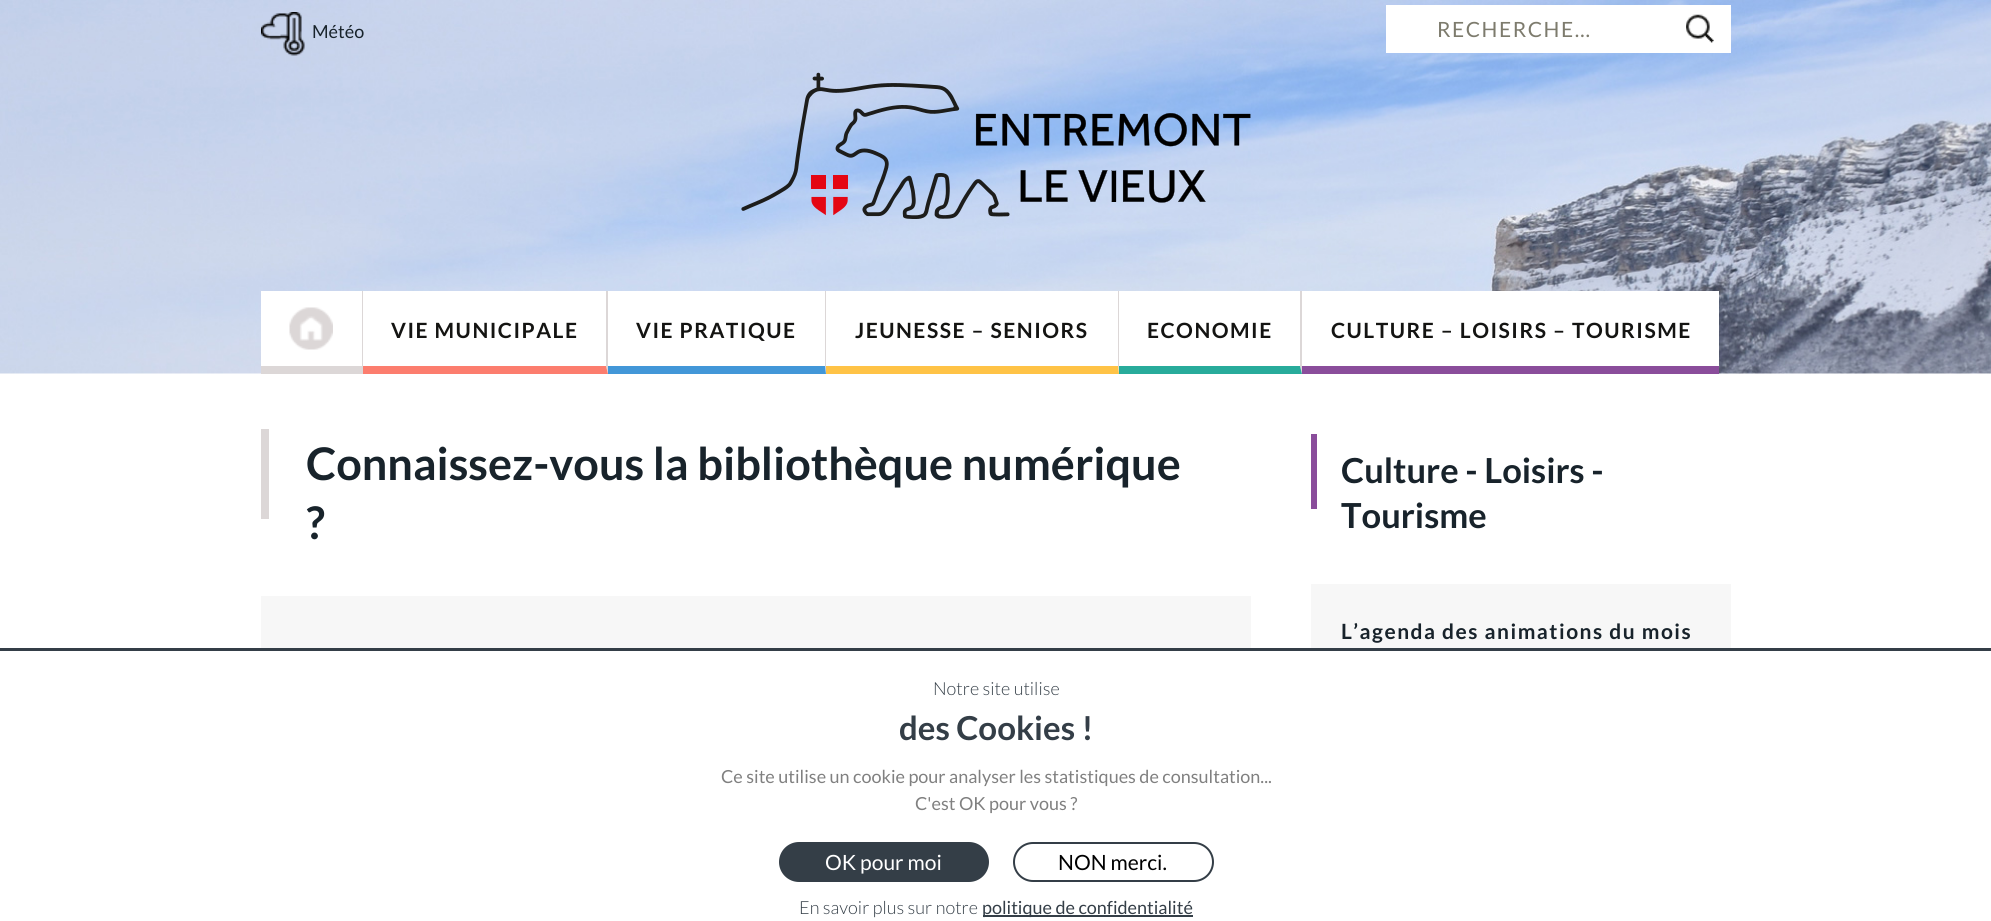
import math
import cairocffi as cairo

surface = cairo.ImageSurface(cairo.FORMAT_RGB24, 1991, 921)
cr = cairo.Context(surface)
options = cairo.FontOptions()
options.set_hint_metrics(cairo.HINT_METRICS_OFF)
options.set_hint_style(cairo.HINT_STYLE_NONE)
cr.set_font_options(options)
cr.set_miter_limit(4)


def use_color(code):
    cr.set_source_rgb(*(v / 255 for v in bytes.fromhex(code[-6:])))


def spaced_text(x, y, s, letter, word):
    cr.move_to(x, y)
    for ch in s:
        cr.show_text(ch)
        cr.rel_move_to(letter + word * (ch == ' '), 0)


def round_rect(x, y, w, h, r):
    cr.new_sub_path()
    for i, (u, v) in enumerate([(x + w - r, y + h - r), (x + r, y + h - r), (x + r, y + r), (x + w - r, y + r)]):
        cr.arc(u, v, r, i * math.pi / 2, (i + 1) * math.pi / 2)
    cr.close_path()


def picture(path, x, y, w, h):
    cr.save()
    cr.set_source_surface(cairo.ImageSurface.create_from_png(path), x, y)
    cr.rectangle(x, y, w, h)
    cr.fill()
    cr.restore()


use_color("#ffffff")
cr.paint()
picture("img1.png", 0, 0, 1991, 374)
picture("img2.png", 261, 12, 44, 44)
cr.select_font_face("Lato")
cr.set_font_size(18)
use_color("#18232b")
cr.move_to(312, 38)
cr.show_text("Météo")
use_color("#ffffff")
cr.rectangle(1386, 5, 345, 48)
cr.fill()
picture("img3.png", 1686, 14, 28, 29)
cr.set_font_size(21)
use_color("#7d7b6d")
spaced_text(1437, 37, "RECHERCHE…", 1.5, 0)
picture("img4.png", 741, 72, 510, 147)
use_color("#ffffff")
cr.rectangle(261, 291, 101, 75)
cr.fill()
use_color("#dcd7d7")
cr.rectangle(362, 291, 1, 83)
cr.fill()
cr.rectangle(261, 366, 102, 8)
cr.fill()
picture("img5.png", 289, 307, 44, 43)
use_color("#ffffff")
cr.rectangle(363, 291, 939, 83)
cr.fill()
use_color("#dcd7d7")
cr.new_path()
cr.move_to(608, 291)
cr.line_to(608, 374)
cr.line_to(606, 366)
cr.line_to(606, 291)
cr.close_path()
cr.fill()
use_color("#fc7d6e")
cr.new_path()
cr.move_to(608, 374)
cr.line_to(363, 374)
cr.line_to(363, 366)
cr.line_to(606, 366)
cr.close_path()
cr.fill()
cr.select_font_face("Lato", cairo.FONT_SLANT_NORMAL, cairo.FONT_WEIGHT_BOLD)
use_color("#141412")
spaced_text(391, 338, "VIE MUNICIPALE", 1.5, 0)
use_color("#dcd7d7")
cr.new_path()
cr.move_to(826, 291)
cr.line_to(826, 374)
cr.line_to(825, 366)
cr.line_to(825, 291)
cr.close_path()
cr.fill()
use_color("#4297d8")
cr.new_path()
cr.move_to(826, 374)
cr.line_to(608, 374)
cr.line_to(608, 366)
cr.line_to(825, 366)
cr.close_path()
cr.fill()
use_color("#141412")
spaced_text(636, 338, "VIE PRATIQUE", 1.5, 0)
use_color("#dcd7d7")
cr.new_path()
cr.move_to(1119, 291)
cr.line_to(1119, 374)
cr.line_to(1118, 366)
cr.line_to(1118, 291)
cr.close_path()
cr.fill()
use_color("#ffc346")
cr.new_path()
cr.move_to(1119, 374)
cr.line_to(826, 374)
cr.line_to(826, 366)
cr.line_to(1118, 366)
cr.close_path()
cr.fill()
use_color("#141412")
spaced_text(855, 338, "JEUNESSE – SENIORS", 1.5, 0)
use_color("#dcd7d7")
cr.new_path()
cr.move_to(1302, 291)
cr.line_to(1302, 374)
cr.line_to(1300, 366)
cr.line_to(1300, 291)
cr.close_path()
cr.fill()
use_color("#28ab9b")
cr.new_path()
cr.move_to(1302, 374)
cr.line_to(1119, 374)
cr.line_to(1119, 366)
cr.line_to(1300, 366)
cr.close_path()
cr.fill()
use_color("#141412")
spaced_text(1147, 338, "ECONOMIE", 1.5, 0)
use_color("#ffffff")
cr.rectangle(1302, 291, 417, 75)
cr.fill()
use_color("#8a4d9b")
cr.rectangle(1302, 366, 417, 8)
cr.fill()
use_color("#141412")
spaced_text(1331, 338, "CULTURE – LOISIRS – TOURISME", 1.5, 0)
use_color("#dcd7d7")
cr.rectangle(261, 429, 8, 90)
cr.fill()
cr.set_font_size(45)
use_color("#18232b")
cr.move_to(306, 480)
cr.show_text("Connaissez-vous la bibliothèque numérique")
cr.move_to(306, 539)
cr.show_text("?")
use_color("#f7f7f7")
cr.rectangle(261, 596, 990, 52)
cr.fill()
use_color("#8a4d9b")
cr.rectangle(1311, 434, 6, 75)
cr.fill()
cr.set_font_size(34.5)
use_color("#18232b")
cr.move_to(1341, 483)
cr.show_text("Culture - Loisirs -")
cr.move_to(1341, 528)
cr.show_text("Tourisme")
use_color("#f7f7f7")
cr.rectangle(1311, 584, 420, 64)
cr.fill()
cr.set_font_size(21)
use_color("#18232b")
spaced_text(1341, 639, "L’agenda des animations du mois", 1.5, 0)
use_color("#343e47")
cr.rectangle(0, 648, 1991, 3)
cr.fill()
cr.select_font_face("Lato Light")
cr.set_font_size(18)
cr.move_to(933, 695)
cr.show_text("Notre site utilise")
cr.select_font_face("Lato", cairo.FONT_SLANT_NORMAL, cairo.FONT_WEIGHT_BOLD)
cr.set_font_size(33)
cr.move_to(899, 740)
cr.show_text("des Cookies !")
cr.select_font_face("Lato")
cr.set_font_size(18)
use_color("#808080")
cr.move_to(721, 783)
cr.show_text("Ce site utilise un cookie pour analyser les statistiques de consultation...")
cr.move_to(915, 810)
cr.show_text("C'est OK pour vous ?")
use_color("#343e47")
round_rect(780, 843, 208, 38, 19)
cr.fill_preserve()
cr.stroke()
cr.set_font_size(21)
use_color("#ffffff")
cr.move_to(825, 870)
cr.show_text("OK pour moi")
round_rect(1014, 843, 199, 38, 19)
use_color("#343e47")
cr.stroke()
use_color("#000000")
cr.move_to(1058, 870)
cr.show_text("NON merci.")
cr.select_font_face("Lato Light")
cr.set_font_size(18)
use_color("#343e47")
cr.move_to(799, 914)
cr.show_text("En savoir plus sur notre")
cr.rectangle(983, 915, 210, 2)
cr.fill()
cr.select_font_face("Lato")
cr.move_to(982, 914)
cr.show_text("politique de confidentialité")
surface.write_to_png("result.png")
